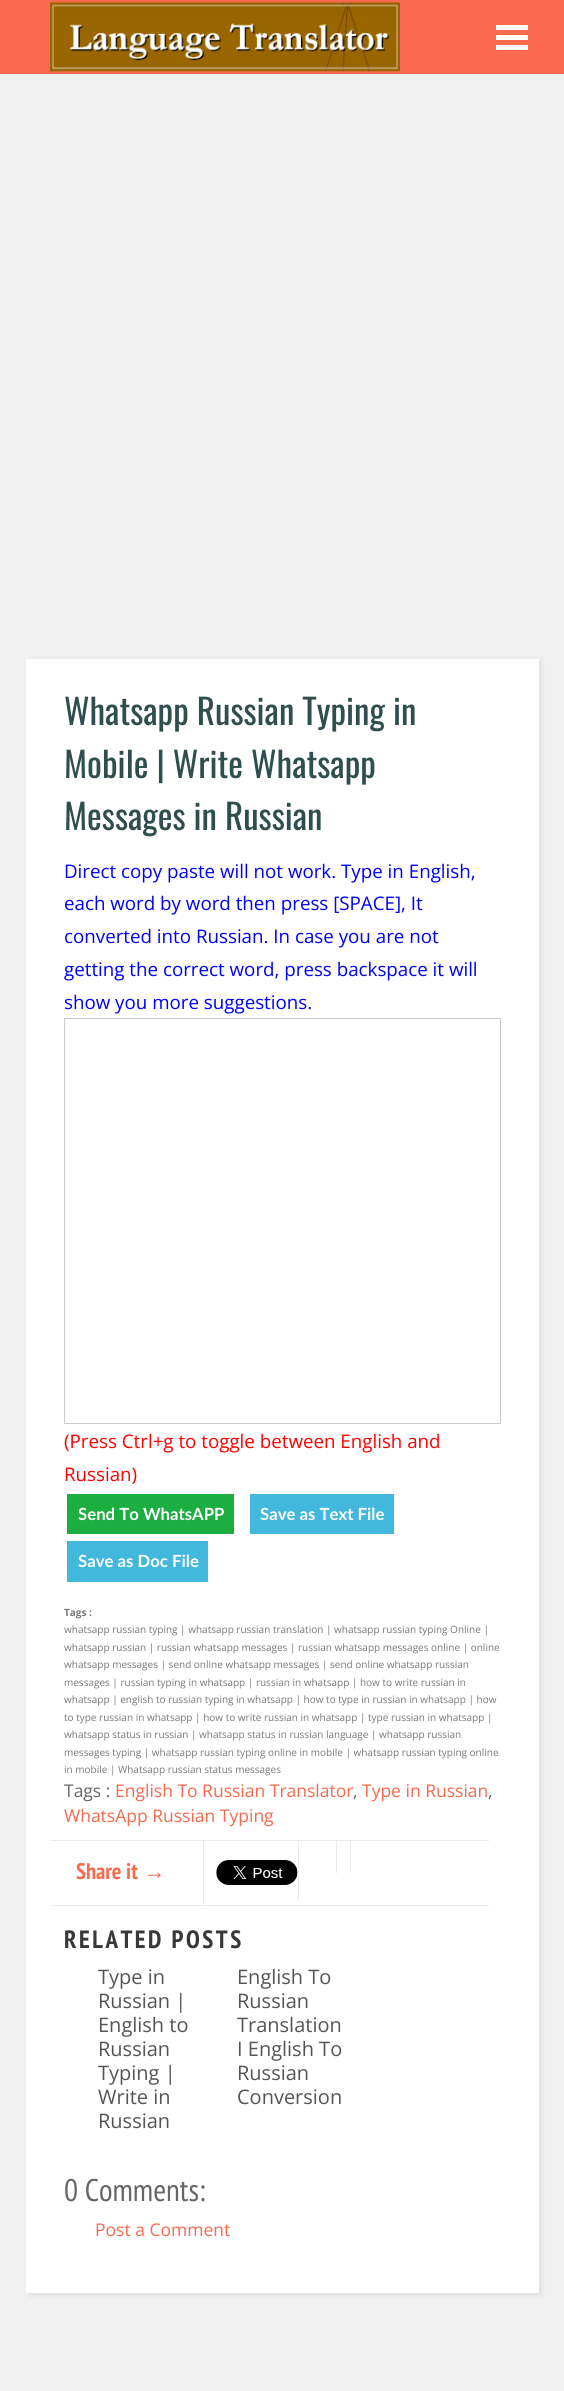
import math
import cairocffi as cairo

surface = cairo.ImageSurface(cairo.FORMAT_RGB24, 564, 2391)
cr = cairo.Context(surface)
options = cairo.FontOptions()
options.set_hint_metrics(cairo.HINT_METRICS_OFF)
options.set_hint_style(cairo.HINT_STYLE_NONE)
cr.set_font_options(options)
cr.set_miter_limit(4)


def use_color(code):
    cr.set_source_rgb(*(v / 255 for v in bytes.fromhex(code[-6:])))


def spaced_text(x, y, s, letter, word):
    cr.move_to(x, y)
    for ch in s:
        cr.show_text(ch)
        cr.rel_move_to(letter + word * (ch == ' '), 0)


def round_rect(x, y, w, h, r):
    cr.new_sub_path()
    for i, (u, v) in enumerate([(x + w - r, y + h - r), (x + r, y + h - r), (x + r, y + r), (x + w - r, y + r)]):
        cr.arc(u, v, r, i * math.pi / 2, (i + 1) * math.pi / 2)
    cr.close_path()


def shadow(x, y, w, h, r, blur, alpha):
    cr.push_group_with_content(cairo.CONTENT_ALPHA)
    cr.set_operator(cairo.OPERATOR_SOURCE)
    for i in range(15, -16, -2):
        e = blur * i / 6
        if min(w, h) + 2 * e > 0:
            cr.set_source_rgba(0, 0, 0, alpha * math.erfc((i - 1) / 8.5) / 2)
            round_rect(x - e, y - e, w + 2 * e, h + 2 * e, max(0, min(r + e + blur * .6, min(w, h) / 2 + e)))
            cr.fill()
    cr.mask(cr.pop_group())


def picture(path, x, y, w, h):
    cr.save()
    cr.set_source_surface(cairo.ImageSurface.create_from_png(path), x, y)
    cr.rectangle(x, y, w, h)
    cr.fill()
    cr.restore()


use_color("#f0f0f0")
cr.paint()
use_color("#f8694d")
cr.rectangle(0, 0, 564, 74)
cr.fill()
picture("img1.png", 50, 2, 350, 70)
use_color("#ffffff")
cr.rectangle(496, 45, 32, 5)
cr.fill()
cr.rectangle(496, 35, 32, 5)
cr.fill()
cr.rectangle(496, 25, 32, 5)
cr.fill()
use_color("#dcdcdc")
shadow(29, 661, 512, 1634, 0, 2.5, 1)
use_color("#ffffff")
cr.rectangle(26, 659, 513, 1634)
cr.fill()
cr.select_font_face("Oswald")
cr.set_font_size(35)
use_color("#2f4f4f")
cr.move_to(64, 725)
cr.show_text("Whatsapp Russian Typing in")
cr.move_to(64, 778)
cr.show_text("Mobile | Write Whatsapp")
cr.move_to(64, 830)
cr.show_text("Messages in Russian")
cr.select_font_face("Open Sans")
cr.set_font_size(18.75)
use_color("#0000ff")
cr.move_to(64, 878)
cr.show_text("Direct copy paste will not work. Type in English,")
cr.move_to(64, 910)
cr.show_text("each word by word then press [SPACE], It")
cr.move_to(64, 943)
cr.show_text("converted into Russian. In case you are not")
cr.move_to(64, 976)
cr.show_text("getting the correct word, press backspace it will")
cr.move_to(64, 1009)
cr.show_text("show you more suggestions.")
cr.rectangle(64.5, 1018.5, 436, 405)
use_color("#cccccc")
cr.set_line_width(1)
cr.stroke()
use_color("#ff0000")
cr.move_to(64, 1448)
cr.show_text("(Press Ctrl+g to toggle between English and")
cr.move_to(64, 1481)
cr.show_text("Russian)")
use_color("#1cae41")
cr.rectangle(67, 1494, 167, 40)
cr.fill()
cr.select_font_face("Lato", cairo.FONT_SLANT_NORMAL, cairo.FONT_WEIGHT_BOLD)
cr.set_font_size(16.75)
use_color("#ffffff")
cr.move_to(78, 1520)
cr.show_text("Send To WhatsAPP")
use_color("#42b8dd")
cr.rectangle(250, 1494, 144, 40)
cr.fill()
use_color("#ffffff")
cr.move_to(260, 1520)
cr.show_text("Save as Text File")
use_color("#42b8dd")
cr.rectangle(67, 1541, 141, 41)
cr.fill()
use_color("#ffffff")
cr.move_to(78, 1567)
cr.show_text("Save as Doc File")
cr.select_font_face("Open Sans", cairo.FONT_SLANT_NORMAL, cairo.FONT_WEIGHT_BOLD)
cr.set_font_size(10)
use_color("#777879")
cr.move_to(64, 1616)
cr.show_text("Tags :")
cr.select_font_face("Open Sans")
cr.move_to(64, 1633)
cr.show_text("whatsapp russian typing | whatsapp russian translation | whatsapp russian typing Online |")
cr.move_to(64, 1651)
cr.show_text("whatsapp russian | russian whatsapp messages | russian whatsapp messages online | online")
cr.move_to(64, 1668)
cr.show_text("whatsapp messages | send online whatsapp messages | send online whatsapp russian")
cr.move_to(64, 1686)
cr.show_text("messages | russian typing in whatsapp | russian in whatsapp | how to write russian in")
cr.move_to(64, 1703)
cr.show_text("whatsapp | english to russian typing in whatsapp | how to type in russian in whatsapp | how")
cr.move_to(64, 1721)
cr.show_text("to type russian in whatsapp | how to write russian in whatsapp | type russian in whatsapp |")
cr.move_to(64, 1738)
cr.show_text("whatsapp status in russian | whatsapp status in russian language | whatsapp russian")
cr.move_to(64, 1756)
cr.show_text("messages typing | whatsapp russian typing online in mobile | whatsapp russian typing online")
cr.move_to(64, 1773)
cr.show_text("in mobile | Whatsapp russian status messages")
cr.set_font_size(17.5)
use_color("#666666")
cr.move_to(64, 1797)
cr.show_text("Tags :")
use_color("#f8694d")
cr.move_to(115, 1797)
cr.show_text("English To Russian Translator")
use_color("#666666")
cr.move_to(353, 1797)
cr.show_text(",")
use_color("#f8694d")
cr.move_to(362, 1797)
cr.show_text("Type in Russian")
use_color("#666666")
cr.move_to(488, 1797)
cr.show_text(",")
use_color("#f8694d")
cr.move_to(64, 1822)
cr.show_text("WhatsApp Russian Typing")
use_color("#eaeaea")
cr.rectangle(51, 1840, 438, 1)
cr.fill()
cr.rectangle(51, 1905, 438, 1)
cr.fill()
cr.select_font_face("PT Sans Narrow", cairo.FONT_SLANT_NORMAL, cairo.FONT_WEIGHT_BOLD)
cr.set_font_size(22.5)
use_color("#f8694d")
cr.move_to(76, 1879)
cr.show_text("Share it")
cr.select_font_face("Liberation Sans", cairo.FONT_SLANT_NORMAL, cairo.FONT_WEIGHT_BOLD)
cr.move_to(143, 1879)
cr.show_text("→")
use_color("#eaeaea")
cr.rectangle(203, 1841, 1, 64)
cr.fill()
picture("img2.png", 216, 1860, 82, 25)
cr.rectangle(298, 1841, 1, 59)
cr.fill()
cr.rectangle(350, 1841, 1, 32)
cr.fill()
cr.rectangle(336, 1841, 1, 32)
cr.fill()
cr.select_font_face("PT Sans Narrow", cairo.FONT_SLANT_NORMAL, cairo.FONT_WEIGHT_BOLD)
cr.set_font_size(25)
use_color("#373839")
spaced_text(64, 1948, "RELATED POSTS", 2.5, 0)
cr.select_font_face("Open Sans")
cr.set_font_size(20)
use_color("#555555")
cr.move_to(98, 1984)
cr.show_text("Type in")
cr.move_to(98, 2008)
cr.show_text("Russian |")
cr.move_to(98, 2032)
cr.show_text("English to")
cr.move_to(98, 2056)
cr.show_text("Russian")
cr.move_to(98, 2080)
cr.show_text("Typing |")
cr.move_to(98, 2104)
cr.show_text("Write in")
cr.move_to(98, 2128)
cr.show_text("Russian")
cr.move_to(237, 1984)
cr.show_text("English To")
cr.move_to(237, 2008)
cr.show_text("Russian")
cr.move_to(237, 2032)
cr.show_text("Translation")
cr.move_to(237, 2056)
cr.show_text("I English To")
cr.move_to(237, 2080)
cr.show_text("Russian")
cr.move_to(237, 2104)
cr.show_text("Conversion")
cr.select_font_face("PT Sans Narrow")
cr.set_font_size(31.25)
use_color("#666666")
cr.move_to(64, 2201)
cr.show_text("0 Comments:")
cr.select_font_face("Open Sans")
cr.set_font_size(17.5)
use_color("#f8694d")
cr.move_to(95, 2236)
cr.show_text("Post a Comment")
surface.write_to_png("result.png")
